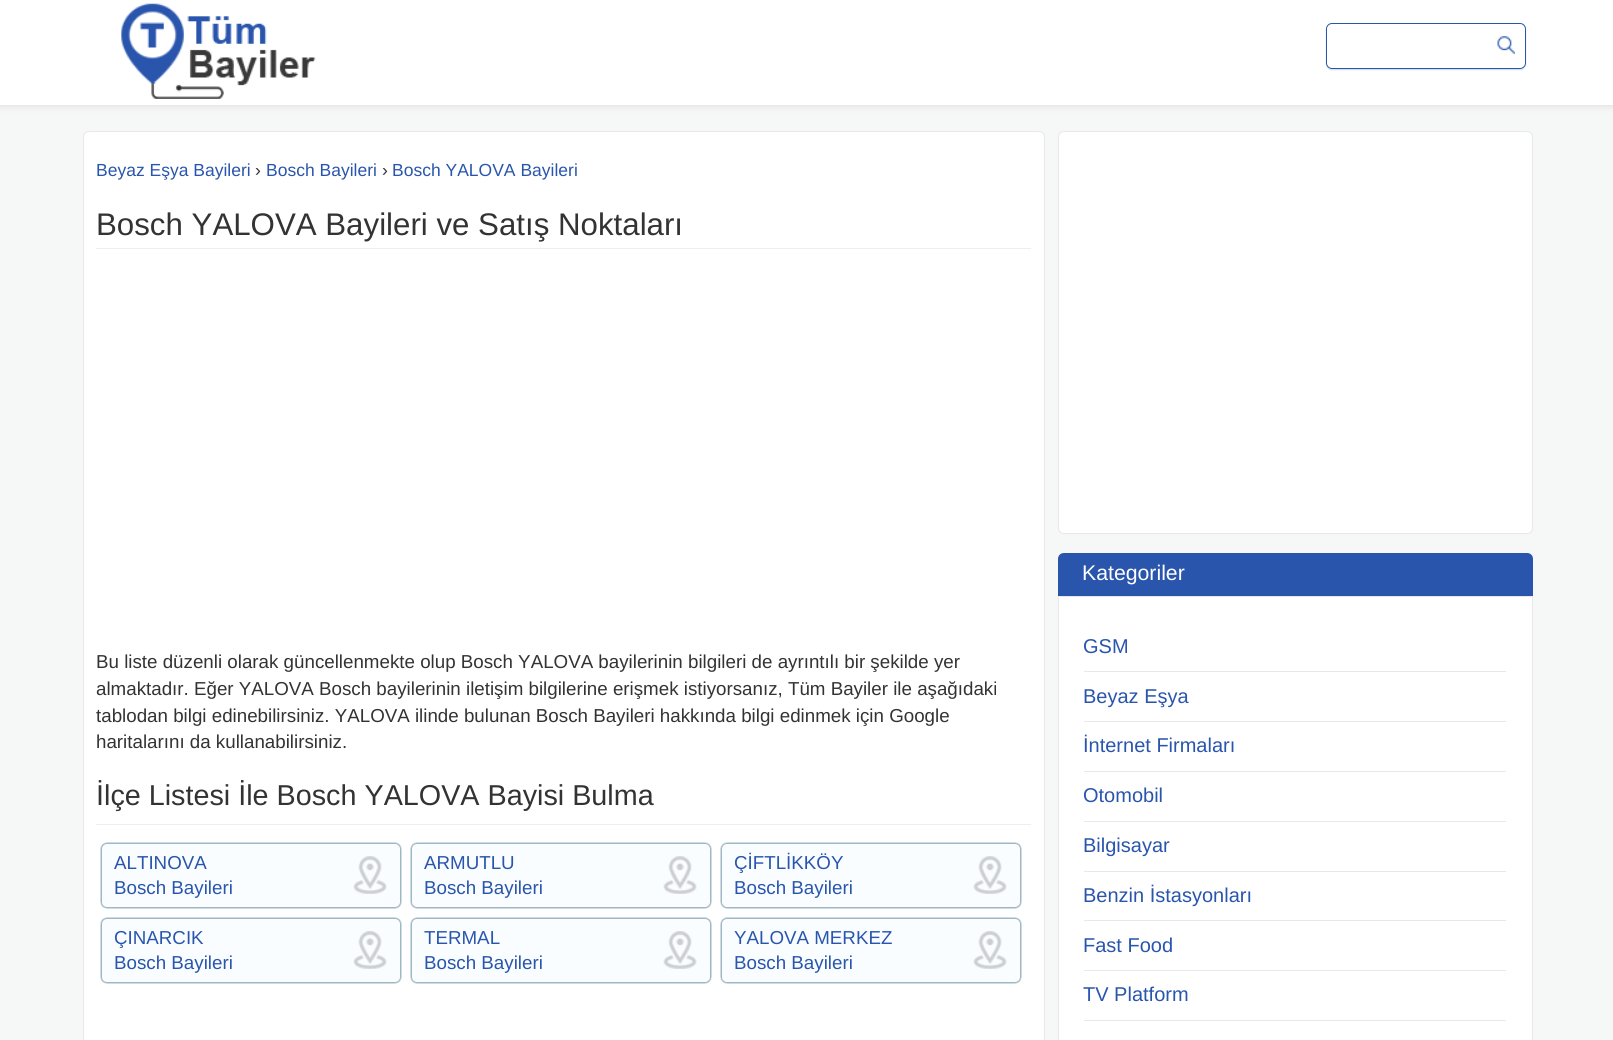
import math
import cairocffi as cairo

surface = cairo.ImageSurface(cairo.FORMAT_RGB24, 1613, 1040)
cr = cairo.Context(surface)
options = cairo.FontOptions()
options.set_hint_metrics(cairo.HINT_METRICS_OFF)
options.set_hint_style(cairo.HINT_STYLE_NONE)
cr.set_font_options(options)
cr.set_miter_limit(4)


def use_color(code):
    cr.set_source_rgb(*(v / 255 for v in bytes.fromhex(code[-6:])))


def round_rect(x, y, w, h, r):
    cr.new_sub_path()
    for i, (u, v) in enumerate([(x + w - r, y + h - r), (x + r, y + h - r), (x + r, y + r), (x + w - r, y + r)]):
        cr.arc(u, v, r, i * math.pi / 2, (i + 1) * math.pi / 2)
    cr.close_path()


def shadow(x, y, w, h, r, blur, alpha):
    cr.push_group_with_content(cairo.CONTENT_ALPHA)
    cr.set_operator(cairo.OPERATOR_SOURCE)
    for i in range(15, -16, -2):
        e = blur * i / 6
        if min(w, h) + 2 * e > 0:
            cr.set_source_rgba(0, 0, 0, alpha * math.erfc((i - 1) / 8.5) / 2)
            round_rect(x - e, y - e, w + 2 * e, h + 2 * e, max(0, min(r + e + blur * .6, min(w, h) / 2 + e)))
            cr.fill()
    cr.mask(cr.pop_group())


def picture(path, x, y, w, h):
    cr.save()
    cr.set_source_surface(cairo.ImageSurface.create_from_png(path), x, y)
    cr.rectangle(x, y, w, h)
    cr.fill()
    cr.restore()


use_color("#f6f7f7")
cr.paint()
use_color("#e9e7e7")
shadow(0, 1, 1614, 107, 0, 3, 1)
use_color("#ffffff")
cr.rectangle(0, 0, 1613, 105)
cr.fill()
use_color("#e9e7e7")
cr.rectangle(0, 105, 1613, 1)
cr.fill()
picture("img1.png", 121, 3, 195, 96)
cr.save()
cr.set_fill_rule(cairo.FILL_RULE_EVEN_ODD)
cr.new_path()
cr.move_to(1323, 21)
cr.line_to(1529, 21)
cr.line_to(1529, 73)
cr.line_to(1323, 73)
cr.close_path()
cr.move_to(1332, 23)
cr.line_to(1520, 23)
cr.curve_to(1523.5, 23, 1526, 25.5, 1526, 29)
cr.line_to(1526, 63)
cr.curve_to(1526, 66.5, 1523.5, 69, 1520, 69)
cr.line_to(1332, 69)
cr.curve_to(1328.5, 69, 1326, 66.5, 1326, 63)
cr.line_to(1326, 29)
cr.curve_to(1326, 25.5, 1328.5, 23, 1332, 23)
cr.close_path()
cr.clip()
use_color("#cddee7")
shadow(1326, 24, 200, 46, 6, 0.5, 1)
cr.restore()
picture("img2.png", 1497, 36, 18, 18)
round_rect(1326.5, 23.5, 199, 45, 5.5)
use_color("#2955ad")
cr.set_line_width(1)
cr.stroke()
use_color("#ffffff")
round_rect(83.5, 131.5, 961, 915, 5.5)
cr.fill_preserve()
use_color("#e9e7e7")
cr.stroke()
cr.select_font_face("Liberation Sans")
cr.set_font_size(17.5)
use_color("#2955ad")
cr.move_to(96, 176)
cr.show_text("Beyaz Eşya Bayileri")
use_color("#333333")
cr.move_to(255, 176)
cr.show_text("›")
use_color("#2955ad")
cr.move_to(266, 176)
cr.show_text("Bosch Bayileri")
use_color("#333333")
cr.move_to(382, 176)
cr.show_text("›")
use_color("#2955ad")
cr.move_to(392, 176)
cr.show_text("Bosch YALOVA Bayileri")
cr.set_font_size(31.25)
use_color("#333333")
cr.move_to(96, 235)
cr.show_text("Bosch YALOVA Bayileri ve Satış Noktaları")
use_color("#eeeeee")
cr.rectangle(96, 248, 935, 1)
cr.fill()
cr.set_font_size(18.75)
use_color("#333333")
cr.move_to(96, 668)
cr.show_text("Bu liste düzenli olarak güncellenmekte olup Bosch YALOVA bayilerinin bilgileri de ayrıntılı bir şekilde yer")
cr.move_to(96, 695)
cr.show_text("almaktadır. Eğer YALOVA Bosch bayilerinin iletişim bilgilerine erişmek istiyorsanız, Tüm Bayiler ile aşağıdaki")
cr.move_to(96, 722)
cr.show_text("tablodan bilgi edinebilirsiniz. YALOVA ilinde bulunan Bosch Bayileri hakkında bilgi edinmek için Google")
cr.move_to(96, 748)
cr.show_text("haritalarını da kullanabilirsiniz.")
cr.set_font_size(28.75)
cr.move_to(96, 805)
cr.show_text("İlçe Listesi İle Bosch YALOVA Bayisi Bulma")
use_color("#eeeeee")
cr.rectangle(96, 824, 935, 1)
cr.fill()
use_color("#0486c5")
shadow(101, 843, 300, 65, 6, 0.5, 1)
use_color("#f9fdff")
round_rect(101, 843, 300, 65, 6)
cr.fill()
picture("img3.png", 353, 856, 34, 38)
round_rect(101.5, 843.5, 299, 64, 5.5)
use_color("#aeb1b5")
cr.stroke()
cr.set_font_size(18.75)
use_color("#2955ad")
cr.move_to(114, 869)
cr.show_text("ALTINOVA")
cr.move_to(114, 894)
cr.show_text("Bosch Bayileri")
use_color("#0486c5")
shadow(411, 843, 300, 65, 6, 0.5, 1)
use_color("#f9fdff")
round_rect(411, 843, 300, 65, 6)
cr.fill()
picture("img3.png", 663, 856, 34, 38)
round_rect(411.5, 843.5, 299, 64, 5.5)
use_color("#aeb1b5")
cr.stroke()
use_color("#2955ad")
cr.move_to(424, 869)
cr.show_text("ARMUTLU")
cr.move_to(424, 894)
cr.show_text("Bosch Bayileri")
use_color("#0486c5")
shadow(721, 843, 300, 65, 6, 0.5, 1)
use_color("#f9fdff")
round_rect(721, 843, 300, 65, 6)
cr.fill()
picture("img3.png", 973, 856, 34, 38)
round_rect(721.5, 843.5, 299, 64, 5.5)
use_color("#aeb1b5")
cr.stroke()
use_color("#2955ad")
cr.move_to(734, 869)
cr.show_text("ÇİFTLİKKÖY")
cr.move_to(734, 894)
cr.show_text("Bosch Bayileri")
use_color("#0486c5")
shadow(101, 918, 300, 65, 6, 0.5, 1)
use_color("#f9fdff")
round_rect(101, 918, 300, 65, 6)
cr.fill()
picture("img3.png", 353, 931, 34, 38)
round_rect(101.5, 918.5, 299, 64, 5.5)
use_color("#aeb1b5")
cr.stroke()
use_color("#2955ad")
cr.move_to(114, 944)
cr.show_text("ÇINARCIK")
cr.move_to(114, 969)
cr.show_text("Bosch Bayileri")
use_color("#0486c5")
shadow(411, 918, 300, 65, 6, 0.5, 1)
use_color("#f9fdff")
round_rect(411, 918, 300, 65, 6)
cr.fill()
picture("img3.png", 663, 931, 34, 38)
round_rect(411.5, 918.5, 299, 64, 5.5)
use_color("#aeb1b5")
cr.stroke()
use_color("#2955ad")
cr.move_to(424, 944)
cr.show_text("TERMAL")
cr.move_to(424, 969)
cr.show_text("Bosch Bayileri")
use_color("#0486c5")
shadow(721, 918, 300, 65, 6, 0.5, 1)
use_color("#f9fdff")
round_rect(721, 918, 300, 65, 6)
cr.fill()
picture("img3.png", 973, 931, 34, 38)
round_rect(721.5, 918.5, 299, 64, 5.5)
use_color("#aeb1b5")
cr.stroke()
use_color("#2955ad")
cr.move_to(734, 944)
cr.show_text("YALOVA MERKEZ")
cr.move_to(734, 969)
cr.show_text("Bosch Bayileri")
use_color("#ffffff")
round_rect(1058.5, 131.5, 474, 402, 5.5)
cr.fill_preserve()
use_color("#e9e7e7")
cr.stroke()
use_color("#2955ad")
cr.new_path()
cr.move_to(1064, 553)
cr.line_to(1527, 553)
cr.curve_to(1530.5, 553, 1533, 555.5, 1533, 559)
cr.line_to(1533, 596)
cr.line_to(1058, 596)
cr.line_to(1058, 559)
cr.curve_to(1058, 555.5, 1060.5, 553, 1064, 553)
cr.close_path()
cr.fill()
cr.set_font_size(21.25)
use_color("#ffffff")
cr.move_to(1082, 580)
cr.show_text("Kategoriler")
cr.rectangle(1058.5, 596.5, 474, 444)
cr.fill_preserve()
use_color("#e9e7e7")
cr.stroke()
cr.rectangle(1084, 671, 422, 1)
cr.fill()
cr.set_font_size(20)
use_color("#2955ad")
cr.move_to(1083, 653)
cr.show_text("GSM")
use_color("#e9e7e7")
cr.rectangle(1084, 721, 422, 1)
cr.fill()
use_color("#2955ad")
cr.move_to(1083, 703)
cr.show_text("Beyaz Eşya")
use_color("#e9e7e7")
cr.rectangle(1084, 771, 422, 1)
cr.fill()
use_color("#2955ad")
cr.move_to(1083, 752)
cr.show_text("İnternet Firmaları")
use_color("#e9e7e7")
cr.rectangle(1084, 821, 422, 1)
cr.fill()
use_color("#2955ad")
cr.move_to(1083, 802)
cr.show_text("Otomobil")
use_color("#e9e7e7")
cr.rectangle(1084, 871, 422, 1)
cr.fill()
use_color("#2955ad")
cr.move_to(1083, 852)
cr.show_text("Bilgisayar")
use_color("#e9e7e7")
cr.rectangle(1084, 920, 422, 1)
cr.fill()
use_color("#2955ad")
cr.move_to(1083, 902)
cr.show_text("Benzin İstasyonları")
use_color("#e9e7e7")
cr.rectangle(1084, 970, 422, 1)
cr.fill()
use_color("#2955ad")
cr.move_to(1083, 952)
cr.show_text("Fast Food")
use_color("#e9e7e7")
cr.rectangle(1084, 1020, 422, 1)
cr.fill()
use_color("#2955ad")
cr.move_to(1083, 1001)
cr.show_text("TV Platform")
surface.write_to_png("result.png")
